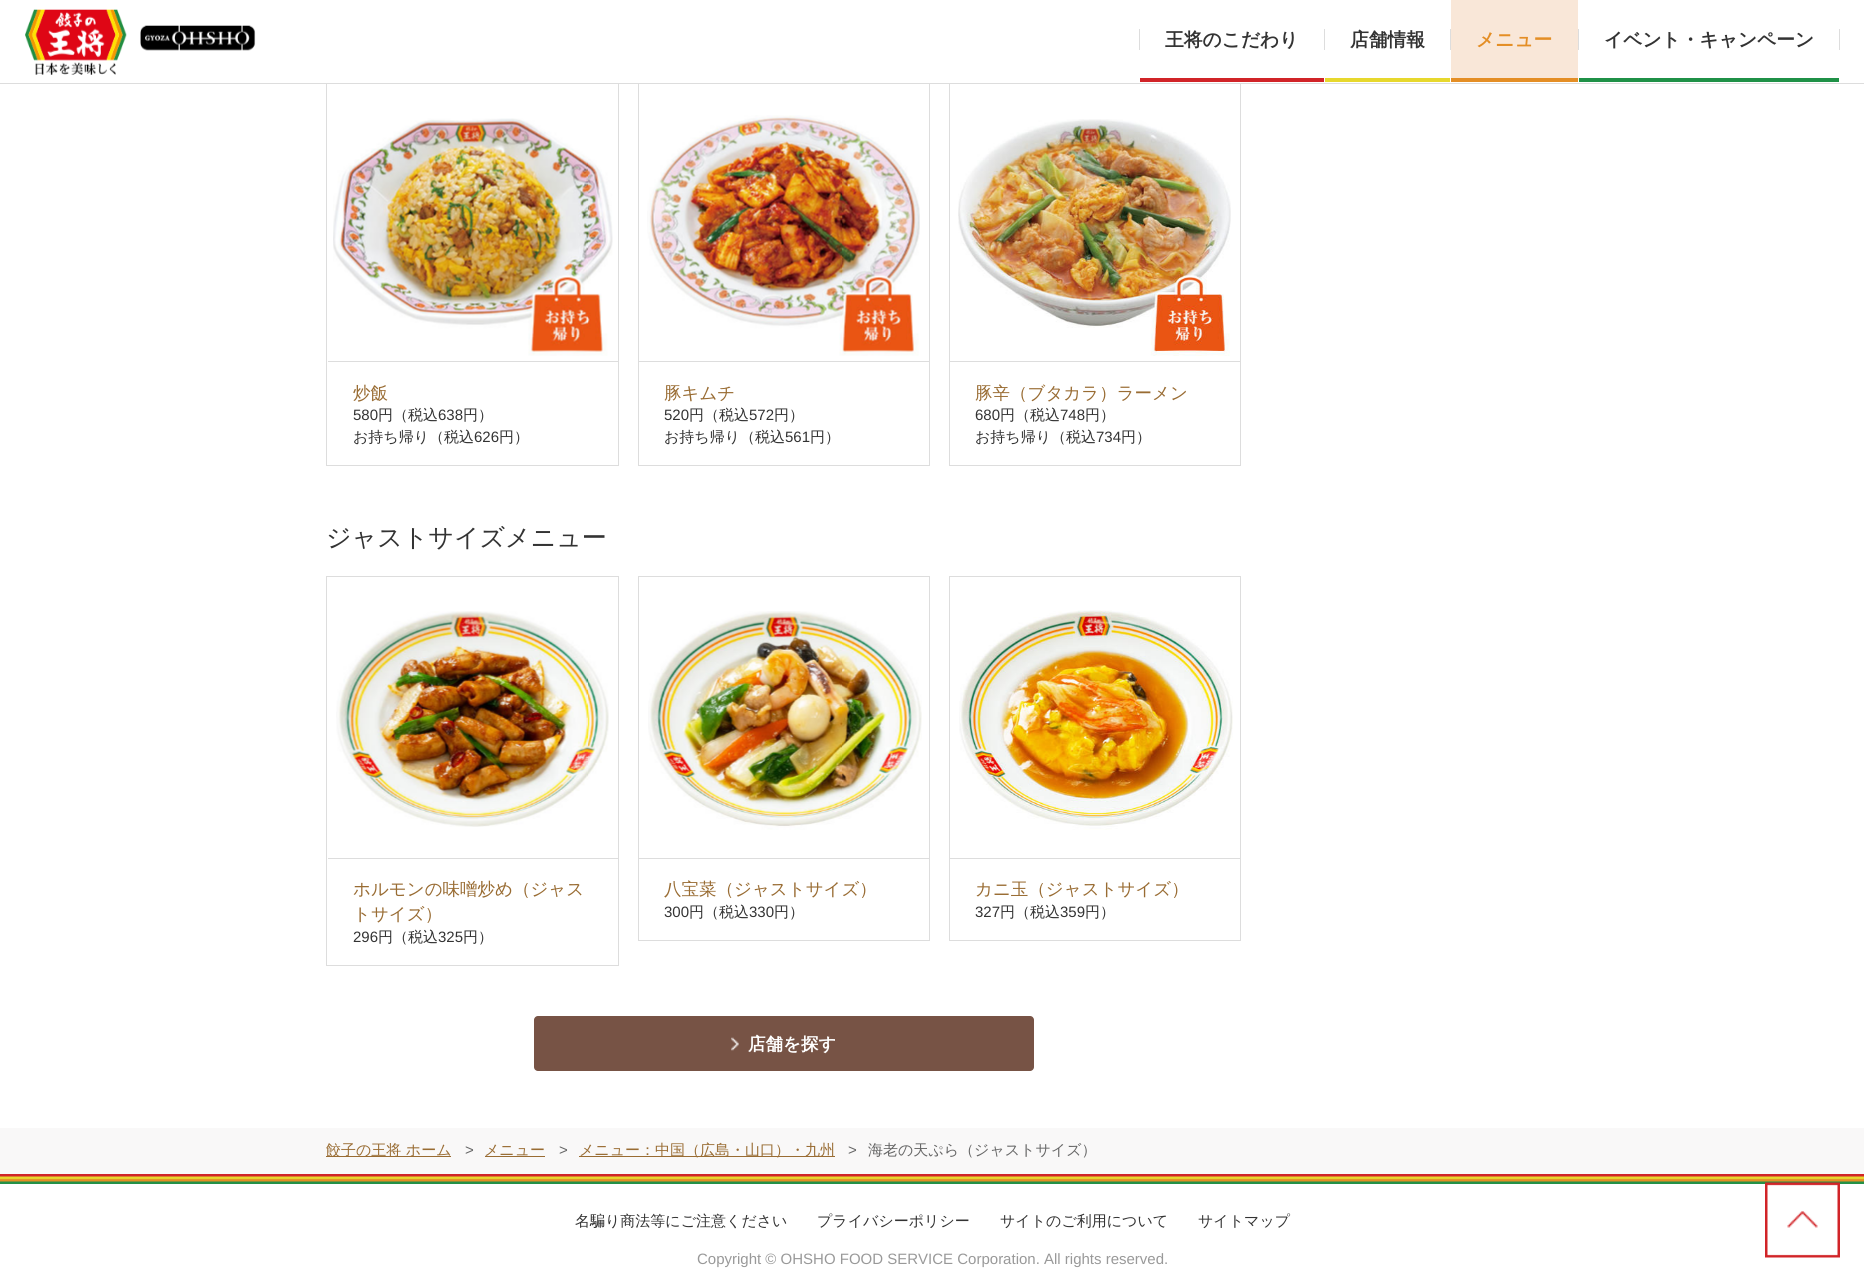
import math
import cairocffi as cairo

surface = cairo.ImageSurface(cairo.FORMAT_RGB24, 1864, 1282)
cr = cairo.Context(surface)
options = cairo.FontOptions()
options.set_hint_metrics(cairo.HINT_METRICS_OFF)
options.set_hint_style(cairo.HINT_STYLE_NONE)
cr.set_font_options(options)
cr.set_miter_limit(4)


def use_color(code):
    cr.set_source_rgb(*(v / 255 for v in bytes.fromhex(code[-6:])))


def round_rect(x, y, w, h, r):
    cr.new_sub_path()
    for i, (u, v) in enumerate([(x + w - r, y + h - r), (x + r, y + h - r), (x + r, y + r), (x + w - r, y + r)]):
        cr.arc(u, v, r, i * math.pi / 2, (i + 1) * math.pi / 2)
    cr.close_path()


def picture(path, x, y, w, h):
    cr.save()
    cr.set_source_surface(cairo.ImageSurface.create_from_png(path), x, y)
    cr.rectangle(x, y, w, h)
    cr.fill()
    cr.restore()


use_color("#ffffff")
cr.paint()
cr.rectangle(326.5, 80.5, 292, 385)
use_color("#dddddd")
cr.set_line_width(1)
cr.stroke()
cr.rectangle(638.5, 80.5, 291, 385)
cr.stroke()
cr.rectangle(949.5, 80.5, 291, 385)
cr.stroke()
use_color("#ffffff")
cr.rectangle(326, 80, 915, 3)
cr.fill()
use_color("#dddddd")
cr.rectangle(0, 83, 1864, 1)
cr.fill()
picture("img1.png", 25, 9, 102, 66)
picture("img2.png", 140, 25, 116, 26)
use_color("#d12428")
cr.rectangle(1140, 78, 184, 4)
cr.fill()
use_color("#dddddd")
cr.rectangle(1139, 29, 1, 21)
cr.fill()
cr.select_font_face("WenQuanYi Zen Hei", cairo.FONT_SLANT_NORMAL, cairo.FONT_WEIGHT_BOLD)
cr.set_font_size(18.75)
use_color("#333333")
cr.move_to(1165, 46)
cr.show_text("王将のこだわり")
use_color("#dddddd")
cr.rectangle(1324, 29, 1, 21)
cr.fill()
use_color("#e7d82d")
cr.rectangle(1325, 78, 125, 4)
cr.fill()
use_color("#333333")
cr.move_to(1350, 46)
cr.show_text("店舗情報")
use_color("#dddddd")
cr.rectangle(1450, 29, 1, 21)
cr.fill()
use_color("#f9e7d8")
cr.rectangle(1451, 0, 127, 78)
cr.fill()
use_color("#e48e25")
cr.rectangle(1451, 78, 127, 4)
cr.fill()
cr.move_to(1476, 46)
cr.show_text("メニュー")
use_color("#dddddd")
cr.rectangle(1578, 29, 1, 21)
cr.fill()
use_color("#1f9147")
cr.rectangle(1579, 78, 260, 4)
cr.fill()
use_color("#333333")
cr.move_to(1604, 46)
cr.show_text("イベント・キャンペーン")
use_color("#dddddd")
cr.rectangle(1839, 29, 1, 21)
cr.fill()
picture("img3.png", 333, 118, 280, 238)
cr.rectangle(328, 361, 290, 1)
cr.fill()
cr.select_font_face("WenQuanYi Zen Hei Medium")
cr.set_font_size(17.5)
use_color("#996c33")
cr.move_to(353, 399)
cr.show_text("炒飯")
cr.select_font_face("Liberation Sans")
cr.set_font_size(15)
use_color("#333333")
cr.move_to(353, 420)
cr.show_text("580")
cr.select_font_face("WenQuanYi Zen Hei Medium")
cr.move_to(378, 420)
cr.show_text("円（税込")
cr.select_font_face("Liberation Sans")
cr.move_to(438, 420)
cr.show_text("638")
cr.select_font_face("WenQuanYi Zen Hei Medium")
cr.move_to(463, 420)
cr.show_text("円）")
cr.move_to(353, 442)
cr.show_text("お持ち帰り（税込")
cr.select_font_face("Liberation Sans")
cr.move_to(474, 442)
cr.show_text("626")
cr.select_font_face("WenQuanYi Zen Hei Medium")
cr.move_to(499, 442)
cr.show_text("円）")
picture("img4.png", 647, 115, 273, 241)
use_color("#dddddd")
cr.rectangle(639, 361, 290, 1)
cr.fill()
cr.set_font_size(17.5)
use_color("#996c33")
cr.move_to(664, 399)
cr.show_text("豚キムチ")
cr.select_font_face("Liberation Sans")
cr.set_font_size(15)
use_color("#333333")
cr.move_to(664, 420)
cr.show_text("520")
cr.select_font_face("WenQuanYi Zen Hei Medium")
cr.move_to(689, 420)
cr.show_text("円（税込")
cr.select_font_face("Liberation Sans")
cr.move_to(749, 420)
cr.show_text("572")
cr.select_font_face("WenQuanYi Zen Hei Medium")
cr.move_to(774, 420)
cr.show_text("円）")
cr.move_to(664, 442)
cr.show_text("お持ち帰り（税込")
cr.select_font_face("Liberation Sans")
cr.move_to(785, 442)
cr.show_text("561")
cr.select_font_face("WenQuanYi Zen Hei Medium")
cr.move_to(810, 442)
cr.show_text("円）")
picture("img5.png", 958, 119, 273, 237)
use_color("#dddddd")
cr.rectangle(950, 361, 290, 1)
cr.fill()
cr.set_font_size(17.5)
use_color("#996c33")
cr.move_to(975, 399)
cr.show_text("豚辛（ブタカラ）ラーメン")
cr.select_font_face("Liberation Sans")
cr.set_font_size(15)
use_color("#333333")
cr.move_to(975, 420)
cr.show_text("680")
cr.select_font_face("WenQuanYi Zen Hei Medium")
cr.move_to(1000, 420)
cr.show_text("円（税込")
cr.select_font_face("Liberation Sans")
cr.move_to(1060, 420)
cr.show_text("748")
cr.select_font_face("WenQuanYi Zen Hei Medium")
cr.move_to(1085, 420)
cr.show_text("円）")
cr.move_to(975, 442)
cr.show_text("お持ち帰り（税込")
cr.select_font_face("Liberation Sans")
cr.move_to(1096, 442)
cr.show_text("734")
cr.select_font_face("WenQuanYi Zen Hei Medium")
cr.move_to(1121, 442)
cr.show_text("円）")
cr.set_font_size(25)
cr.move_to(326, 546)
cr.show_text("ジャストサイズメニュー")
cr.rectangle(326.5, 576.5, 292, 389)
use_color("#dddddd")
cr.stroke()
picture("img6.png", 336, 611, 273, 216)
cr.rectangle(328, 858, 290, 1)
cr.fill()
cr.set_font_size(17.5)
use_color("#996c33")
cr.move_to(353, 895)
cr.show_text("ホルモンの味噌炒め（ジャス")
cr.move_to(353, 920)
cr.show_text("トサイズ）")
cr.select_font_face("Liberation Sans")
cr.set_font_size(15)
use_color("#333333")
cr.move_to(353, 942)
cr.show_text("296")
cr.select_font_face("WenQuanYi Zen Hei Medium")
cr.move_to(378, 942)
cr.show_text("円（税込")
cr.select_font_face("Liberation Sans")
cr.move_to(438, 942)
cr.show_text("325")
cr.select_font_face("WenQuanYi Zen Hei Medium")
cr.move_to(463, 942)
cr.show_text("円）")
cr.rectangle(638.5, 576.5, 291, 364)
use_color("#dddddd")
cr.stroke()
picture("img7.png", 648, 611, 274, 219)
cr.rectangle(639, 858, 290, 1)
cr.fill()
cr.set_font_size(17.5)
use_color("#996c33")
cr.move_to(664, 895)
cr.show_text("八宝菜（ジャストサイズ）")
cr.select_font_face("Liberation Sans")
cr.set_font_size(15)
use_color("#333333")
cr.move_to(664, 917)
cr.show_text("300")
cr.select_font_face("WenQuanYi Zen Hei Medium")
cr.move_to(689, 917)
cr.show_text("円（税込")
cr.select_font_face("Liberation Sans")
cr.move_to(749, 917)
cr.show_text("330")
cr.select_font_face("WenQuanYi Zen Hei Medium")
cr.move_to(774, 917)
cr.show_text("円）")
cr.rectangle(949.5, 576.5, 291, 364)
use_color("#dddddd")
cr.stroke()
picture("img8.png", 959, 610, 274, 220)
cr.rectangle(950, 858, 290, 1)
cr.fill()
cr.set_font_size(17.5)
use_color("#996c33")
cr.move_to(975, 895)
cr.show_text("カニ玉（ジャストサイズ）")
cr.select_font_face("Liberation Sans")
cr.set_font_size(15)
use_color("#333333")
cr.move_to(975, 917)
cr.show_text("327")
cr.select_font_face("WenQuanYi Zen Hei Medium")
cr.move_to(1000, 917)
cr.show_text("円（税込")
cr.select_font_face("Liberation Sans")
cr.move_to(1060, 917)
cr.show_text("359")
cr.select_font_face("WenQuanYi Zen Hei Medium")
cr.move_to(1085, 917)
cr.show_text("円）")
use_color("#775345")
round_rect(534, 1016, 500, 55, 4)
cr.fill()
picture("img9.png", 731, 1037, 8, 14)
cr.select_font_face("WenQuanYi Zen Hei", cairo.FONT_SLANT_NORMAL, cairo.FONT_WEIGHT_BOLD)
cr.set_font_size(17.5)
use_color("#ffffff")
cr.move_to(748, 1050)
cr.show_text("店舗を探す")
use_color("#f9f8f8")
cr.rectangle(0, 1128, 1864, 46)
cr.fill()
use_color("#996c33")
cr.rectangle(326, 1156, 125, 1)
cr.fill()
cr.select_font_face("WenQuanYi Zen Hei Medium")
cr.set_font_size(15)
cr.move_to(326, 1155)
cr.show_text("餃子の王将 ホーム")
cr.select_font_face("Liberation Sans")
use_color("#666666")
cr.move_to(465, 1155)
cr.show_text(">")
cr.select_font_face("WenQuanYi Zen Hei Medium")
use_color("#996c33")
cr.move_to(484, 1155)
cr.show_text("メニュー")
cr.rectangle(485, 1156, 60, 1)
cr.fill()
cr.select_font_face("Liberation Sans")
use_color("#666666")
cr.move_to(559, 1155)
cr.show_text(">")
use_color("#996c33")
cr.rectangle(579, 1156, 256, 1)
cr.fill()
cr.select_font_face("WenQuanYi Zen Hei Medium")
cr.move_to(579, 1155)
cr.show_text("メニュー：中国（広島・山口）・九州")
cr.select_font_face("Liberation Sans")
use_color("#666666")
cr.move_to(848, 1155)
cr.show_text(">")
cr.select_font_face("WenQuanYi Zen Hei Medium")
cr.move_to(868, 1155)
cr.show_text("海老の天ぷら（ジャストサイズ）")
picture("img10.png", 0, 1174, 1864, 10)
use_color("#333333")
cr.move_to(575, 1226)
cr.show_text("名騙り商法等にご注意ください")
cr.move_to(817, 1226)
cr.show_text("プライバシーポリシー")
cr.move_to(1000, 1226)
cr.show_text("サイトのご利用について")
cr.move_to(1198, 1226)
cr.show_text("サイトマップ")
cr.select_font_face("Liberation Sans")
use_color("#999999")
cr.move_to(697, 1264)
cr.show_text("Copyright © OHSHO FOOD SERVICE Corporation. All rights reserved.")
picture("img11.png", 1765, 1182, 75, 76)
surface.write_to_png("result.png")
